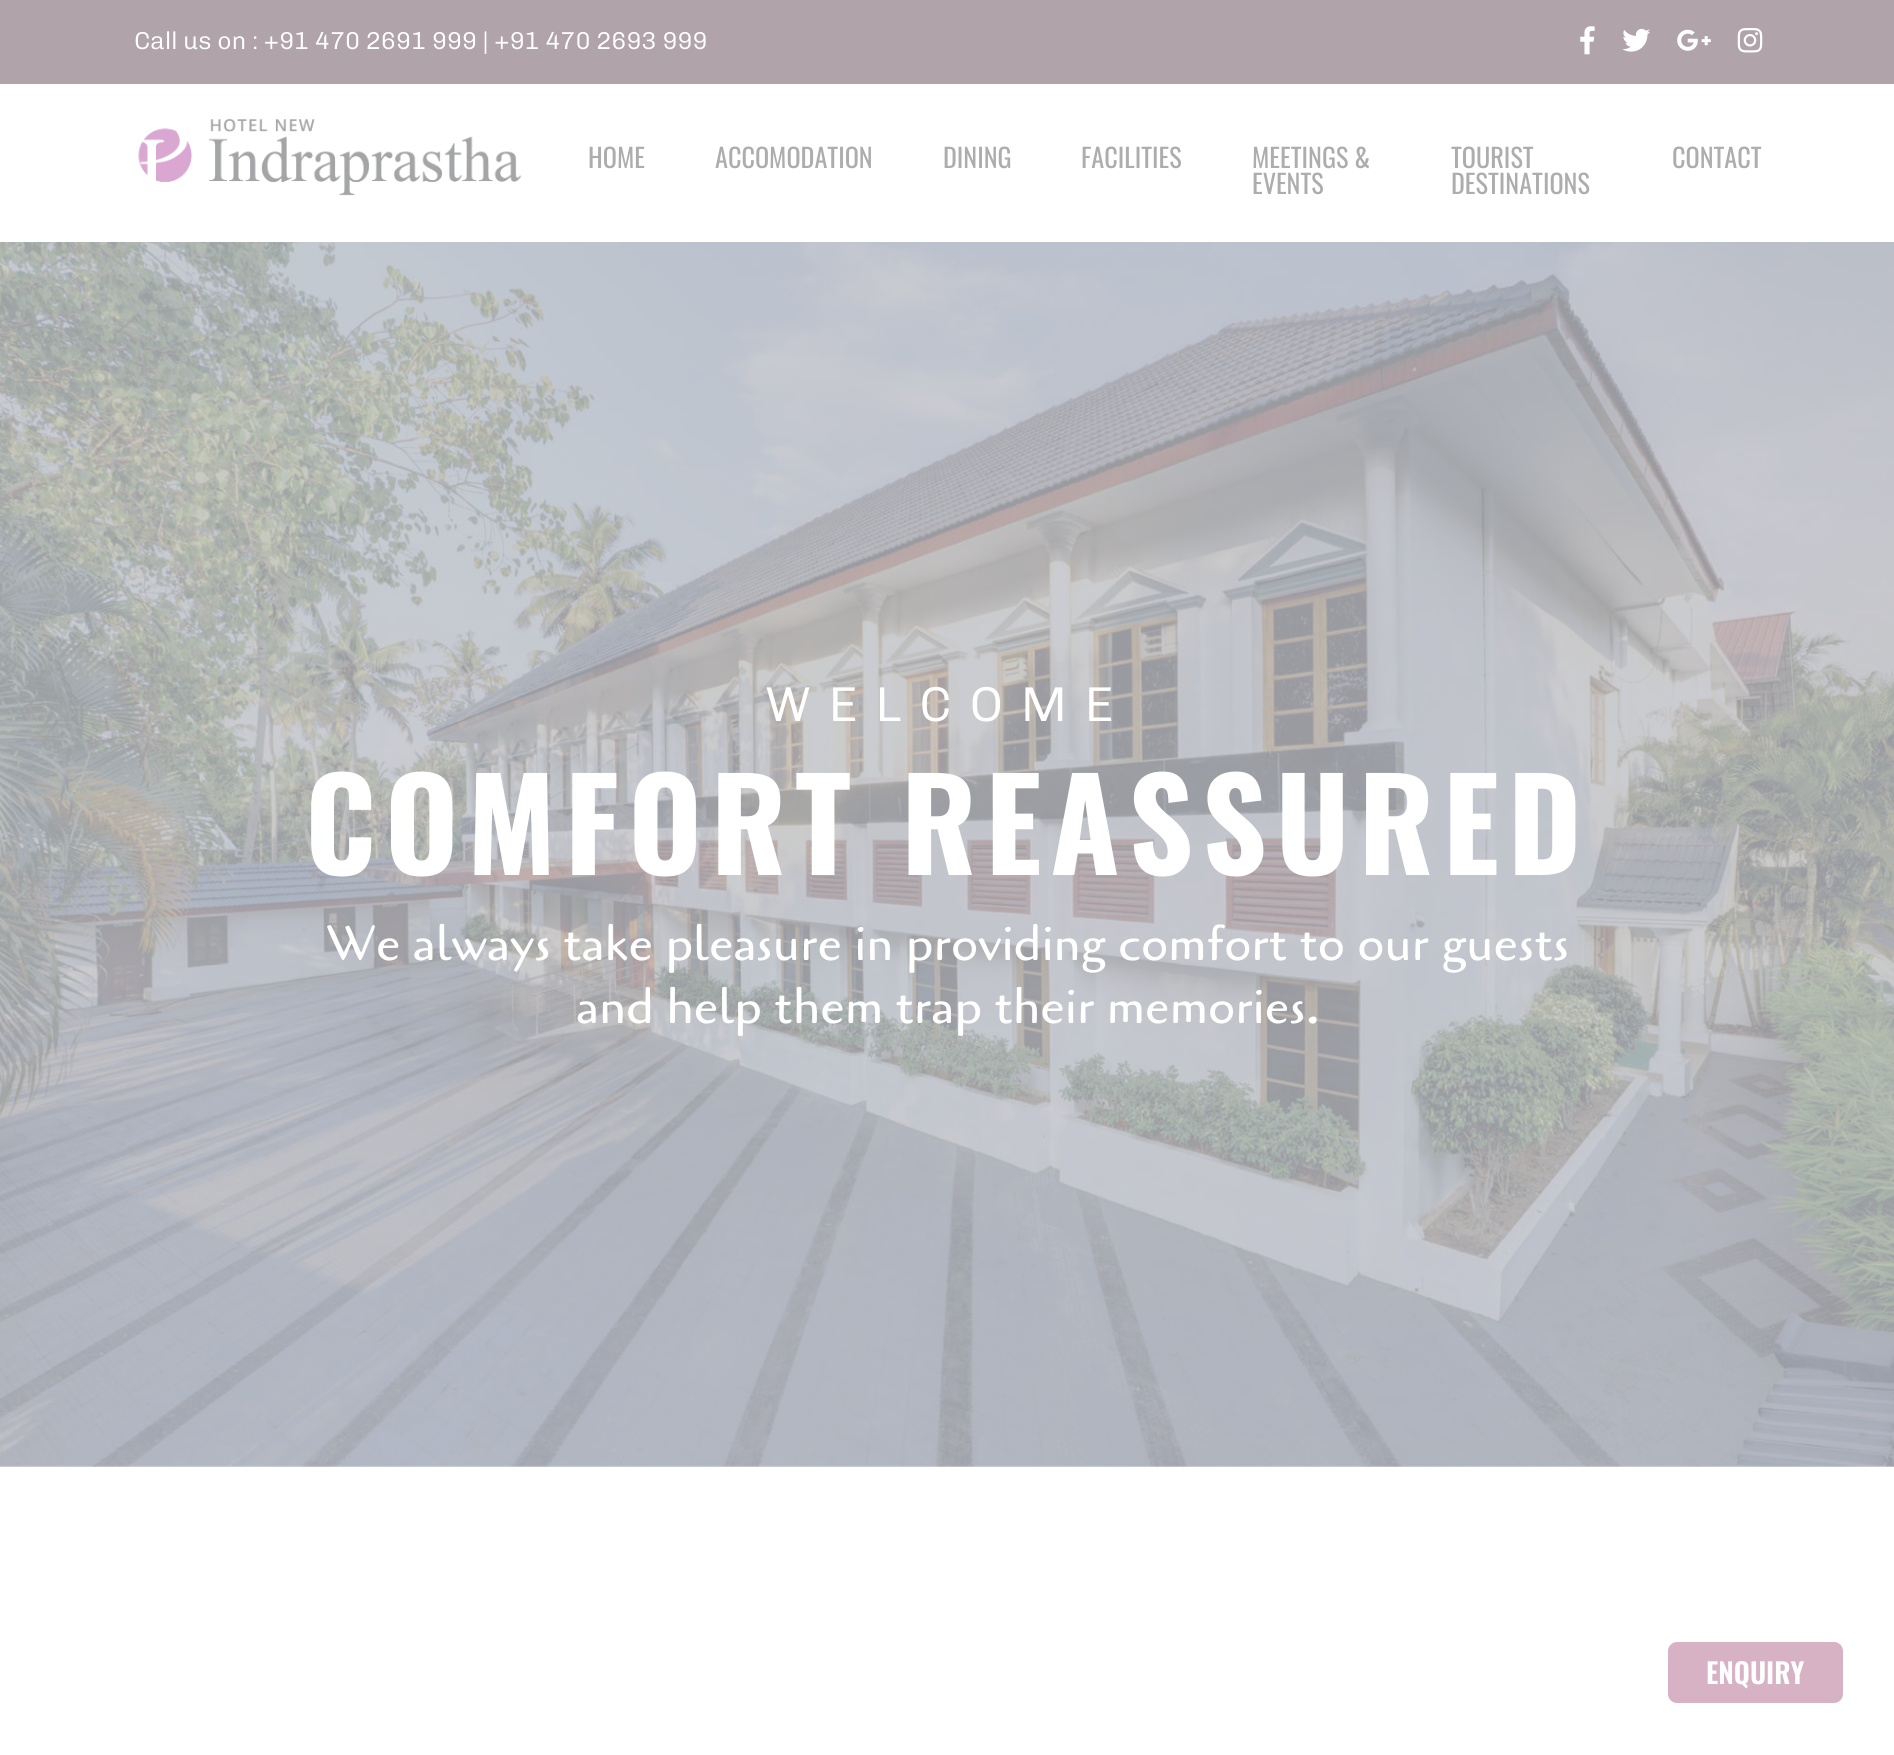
import math
import cairocffi as cairo

surface = cairo.ImageSurface(cairo.FORMAT_RGB24, 1894, 1755)
cr = cairo.Context(surface)
options = cairo.FontOptions()
options.set_hint_metrics(cairo.HINT_METRICS_OFF)
options.set_hint_style(cairo.HINT_STYLE_NONE)
cr.set_font_options(options)
cr.set_miter_limit(4)


def use_color(code):
    cr.set_source_rgb(*(v / 255 for v in bytes.fromhex(code[-6:])))


def spaced_text(x, y, s, letter, word):
    cr.move_to(x, y)
    for ch in s:
        cr.show_text(ch)
        cr.rel_move_to(letter + word * (ch == ' '), 0)


def round_rect(x, y, w, h, r):
    cr.new_sub_path()
    for i, (u, v) in enumerate([(x + w - r, y + h - r), (x + r, y + h - r), (x + r, y + r), (x + w - r, y + r)]):
        cr.arc(u, v, r, i * math.pi / 2, (i + 1) * math.pi / 2)
    cr.close_path()


def picture(path, x, y, w, h):
    cr.save()
    cr.set_source_surface(cairo.ImageSurface.create_from_png(path), x, y)
    cr.rectangle(x, y, w, h)
    cr.fill()
    cr.restore()


use_color("#ffffff")
cr.paint()
use_color("#b0a3aa")
cr.rectangle(0, 0, 1894, 84)
cr.fill()
cr.select_font_face("Chivo Light")
cr.set_font_size(24.5)
use_color("#ffffff")
cr.move_to(134, 49)
cr.show_text("Call us on : +91 470 2691 999 | +91 470 2693 999")
picture("img1.png", 1580, 26, 15, 29)
picture("img2.png", 1622, 28, 29, 24)
picture("img3.png", 1677, 29, 34, 22)
picture("img4.png", 1737, 28, 26, 25)
picture("img5.png", 138, 118, 384, 78)
cr.select_font_face("Oswald")
cr.set_font_size(26.25)
use_color("#adadad")
cr.move_to(588, 168)
cr.show_text("HOME")
cr.move_to(715, 168)
cr.show_text("ACCOMODATION")
cr.move_to(943, 168)
cr.show_text("DINING")
cr.move_to(1081, 168)
cr.show_text("FACILITIES")
cr.move_to(1252, 168)
cr.show_text("MEETINGS &")
cr.move_to(1252, 194)
cr.show_text("EVENTS")
cr.move_to(1451, 168)
cr.show_text("TOURIST")
cr.move_to(1451, 194)
cr.show_text("DESTINATIONS")
cr.move_to(1672, 168)
cr.show_text("CONTACT")
picture("img6.png", 0, 242, 1894, 1225)
cr.select_font_face("Chivo Light")
cr.set_font_size(49)
use_color("#ffffff")
spaced_text(765, 721, "WELCOME", 17.5, 0)
cr.select_font_face("Oswald", cairo.FONT_SLANT_NORMAL, cairo.FONT_WEIGHT_BOLD)
cr.set_font_size(126)
spaced_text(305, 875, "COMFORT REASSURED", 8.75, 0)
cr.select_font_face("Cagliostro")
cr.set_font_size(49)
cr.move_to(326, 960)
cr.show_text("We always take pleasure in providing comfort to our guests")
cr.move_to(576, 1023)
cr.show_text("and help them trap their memories.")
use_color("#d7b2c5")
round_rect(1668, 1642, 175, 61, 9)
cr.fill()
cr.select_font_face("Oswald SemiBold")
cr.set_font_size(28)
use_color("#ffffff")
cr.move_to(1706, 1684)
cr.show_text("ENQUIRY")
surface.write_to_png("result.png")
